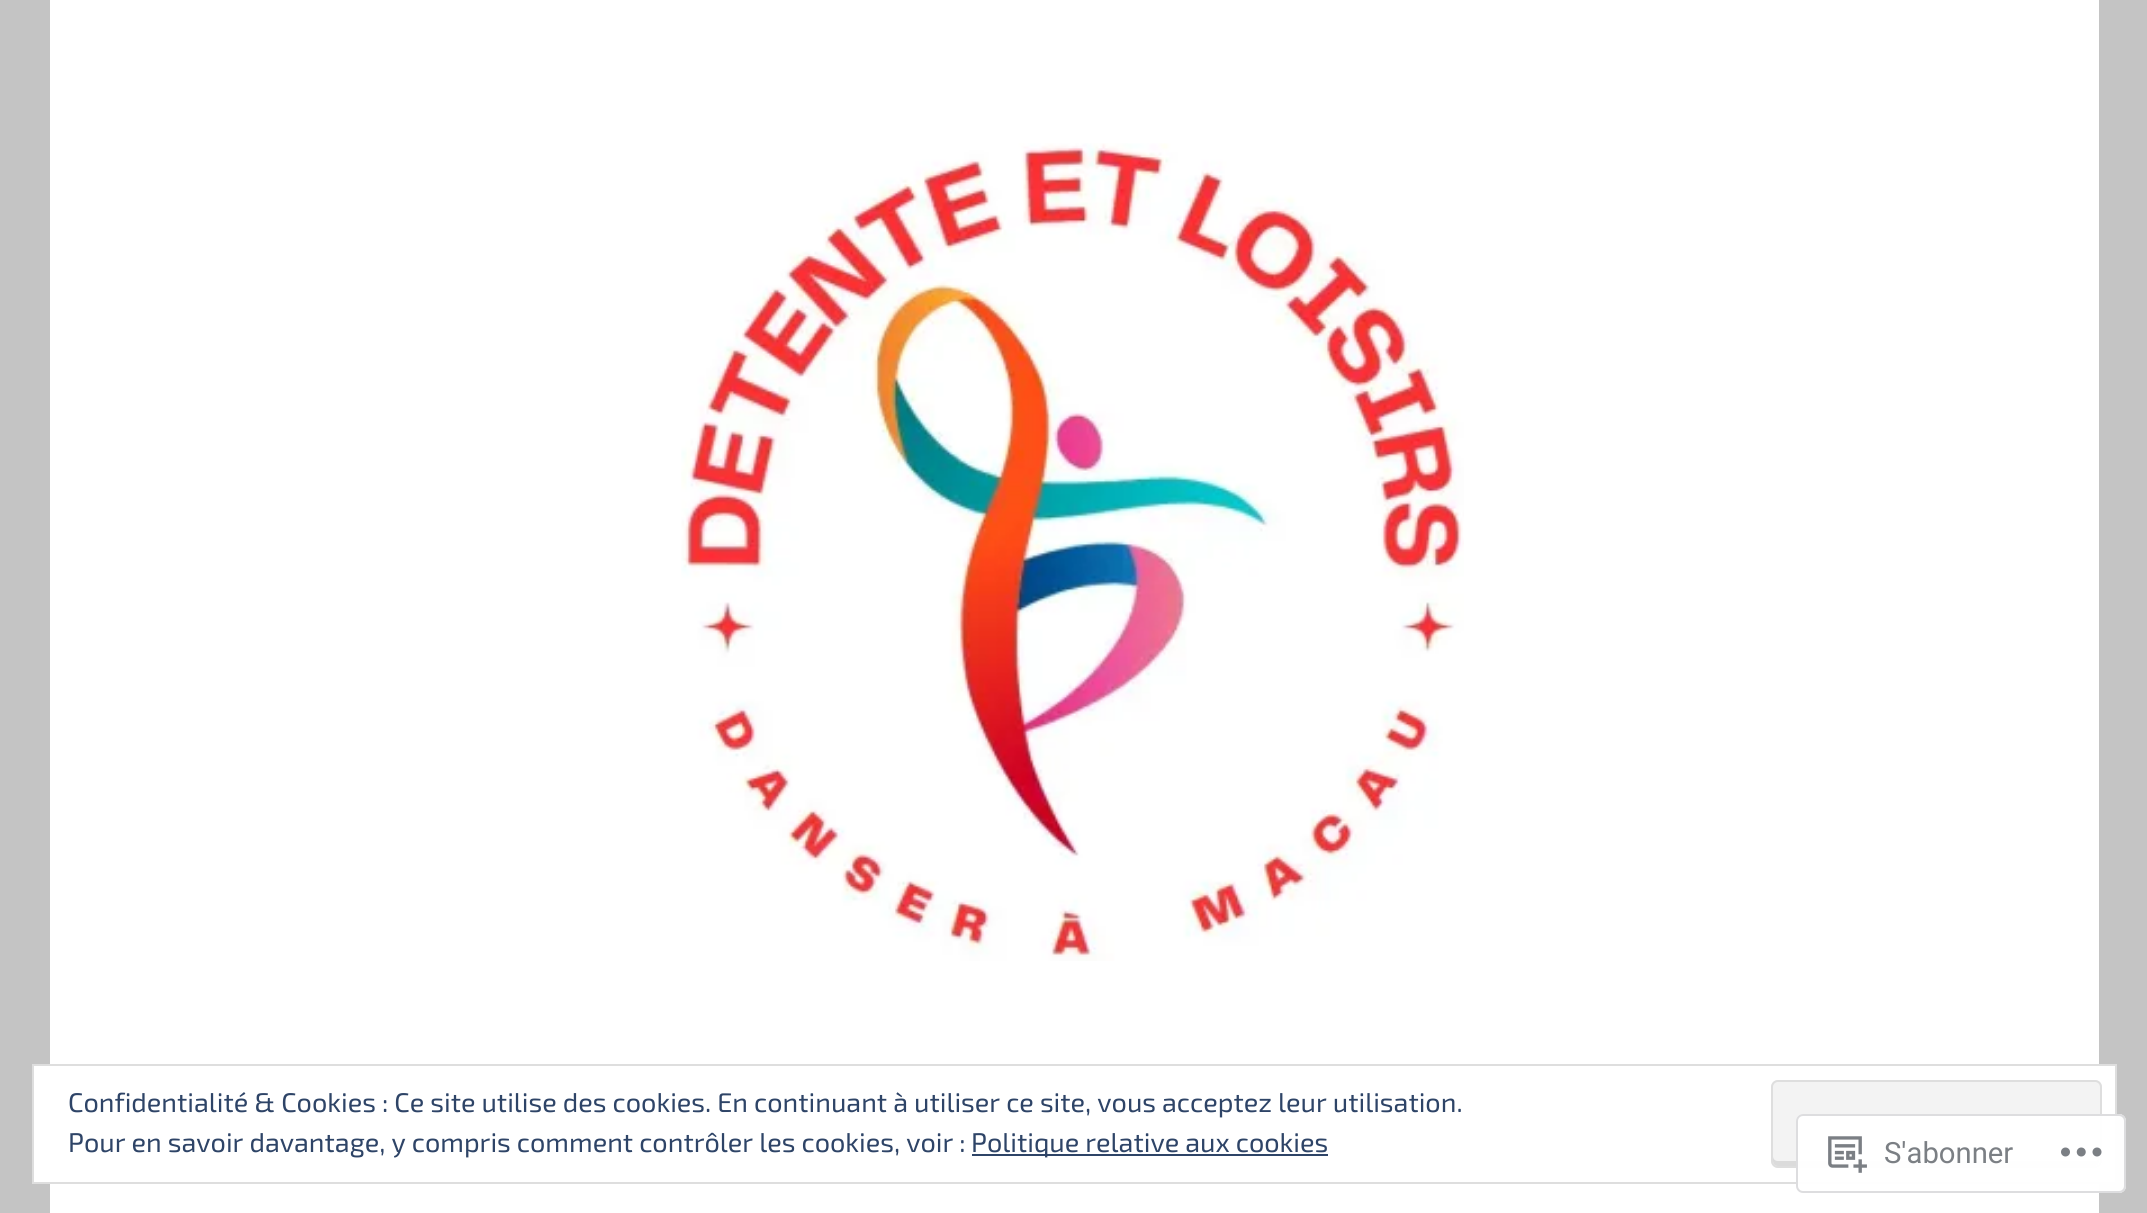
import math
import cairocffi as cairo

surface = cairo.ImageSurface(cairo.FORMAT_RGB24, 2147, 1213)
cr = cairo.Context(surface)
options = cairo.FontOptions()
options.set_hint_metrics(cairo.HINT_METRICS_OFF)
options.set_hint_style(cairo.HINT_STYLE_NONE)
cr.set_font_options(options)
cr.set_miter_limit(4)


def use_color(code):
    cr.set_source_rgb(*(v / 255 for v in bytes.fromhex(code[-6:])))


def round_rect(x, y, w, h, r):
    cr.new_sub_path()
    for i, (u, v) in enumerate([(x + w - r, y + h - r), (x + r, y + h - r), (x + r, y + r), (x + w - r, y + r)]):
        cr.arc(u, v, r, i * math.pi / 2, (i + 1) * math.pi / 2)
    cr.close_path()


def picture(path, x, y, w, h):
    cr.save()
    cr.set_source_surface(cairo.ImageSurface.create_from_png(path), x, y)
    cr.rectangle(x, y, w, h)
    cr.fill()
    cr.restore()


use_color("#c4c4c4")
cr.paint()
use_color("#ffffff")
cr.rectangle(50, 0, 2049, 1213)
cr.fill()
picture("img1.png", 681, 143, 783, 818)
cr.rectangle(33, 1065, 2083, 118)
cr.fill_preserve()
use_color("#dedede")
cr.stroke()
cr.select_font_face("Exo 2")
cr.set_font_size(27)
use_color("#2e4467")
cr.move_to(68, 1112)
cr.show_text("Confidentialité & Cookies : Ce site utilise des cookies. En continuant à utiliser ce site, vous acceptez leur utilisation.")
use_color("#f3f3f3")
round_rect(1771, 1080, 331, 88, 7)
cr.fill()
use_color("#dbdbdb")
cr.new_path()
cr.move_to(1773, 1156)
cr.line_to(1773, 1161)
cr.curve_to(1773, 1164, 1775, 1166, 1778, 1166)
cr.line_to(2094, 1166)
cr.curve_to(2097, 1166, 2099, 1164, 2099, 1161)
cr.line_to(2099, 1156)
cr.curve_to(2099, 1159, 2097, 1161, 2095, 1161)
cr.line_to(1778, 1161)
cr.curve_to(1775, 1161, 1773, 1159, 1773, 1156)
cr.close_path()
cr.fill()
round_rect(1772, 1081, 329, 86, 6)
use_color("#dedede")
cr.stroke()
use_color("#2e4467")
cr.move_to(68, 1152)
cr.show_text("Pour en savoir davantage, y compris comment contrôler les cookies, voir :")
cr.rectangle(972, 1154, 356, 2)
cr.fill()
cr.move_to(971, 1152)
cr.show_text("Politique relative aux cookies")
cr.set_source_rgba(1, 1, 1, 0.98)
round_rect(1796, 1114, 330, 79, 7)
cr.fill()
round_rect(1797, 1115, 328, 77, 6)
cr.set_source_rgba(0.863, 0.863, 0.871, 0.98)
cr.stroke()
picture("img2.png", 1828, 1136, 39, 37)
cr.select_font_face("Roboto")
cr.set_font_size(29.25)
use_color("#7b7f84")
cr.move_to(1884, 1163)
cr.show_text("S'abonner")
picture("img3.png", 2061, 1147, 41, 10)
surface.write_to_png("result.png")
